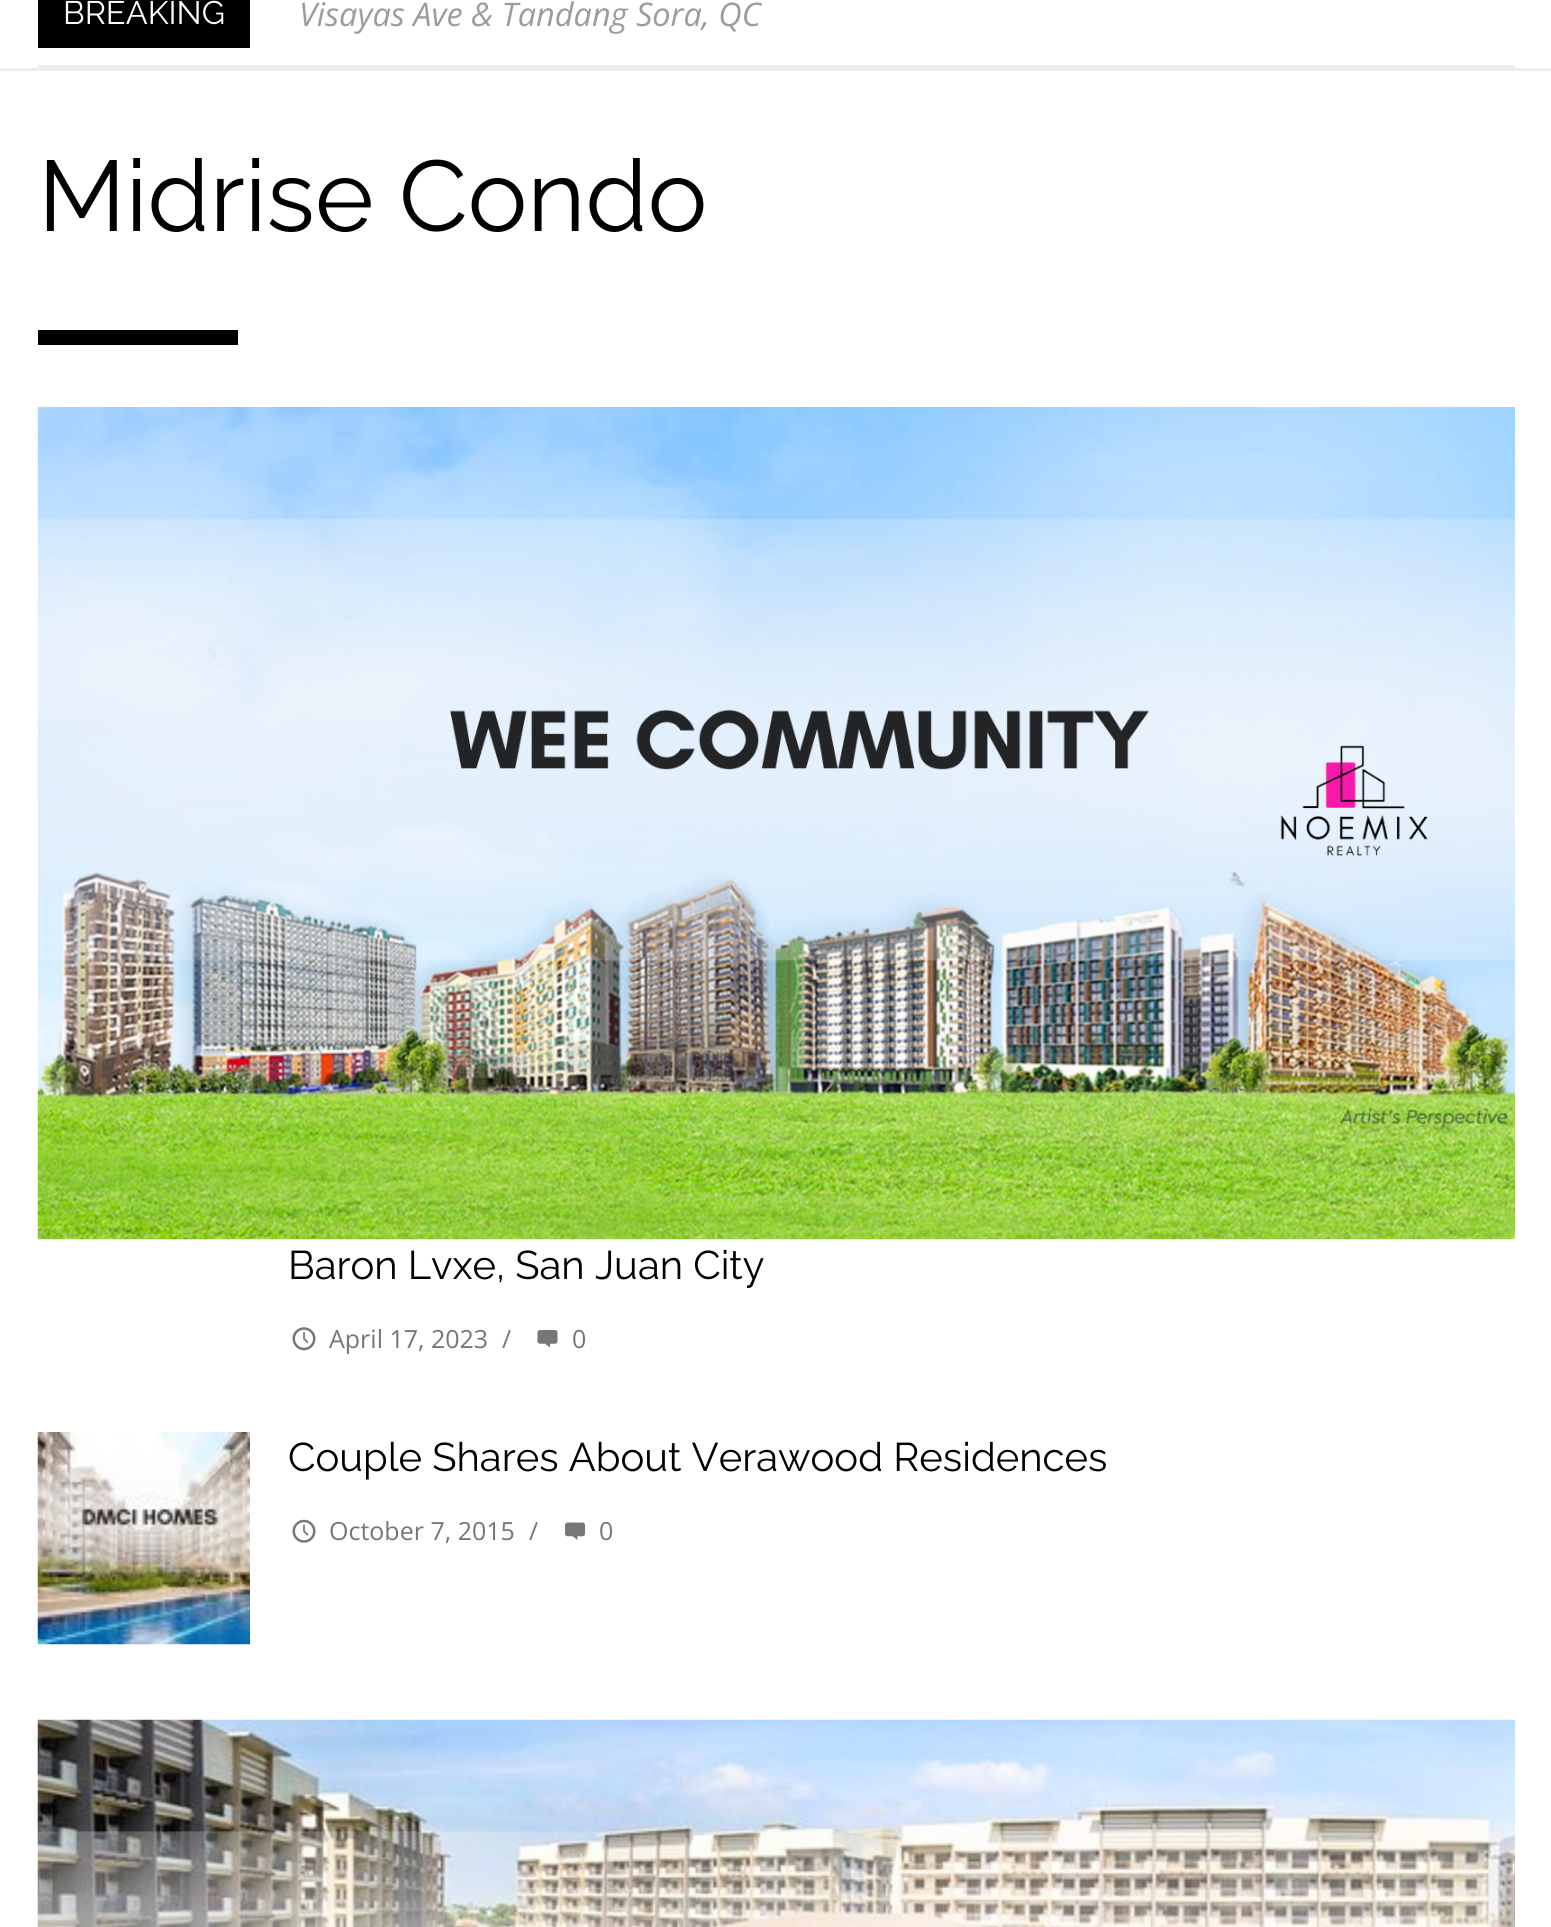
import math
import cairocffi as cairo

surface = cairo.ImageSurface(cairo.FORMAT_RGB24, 1551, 1927)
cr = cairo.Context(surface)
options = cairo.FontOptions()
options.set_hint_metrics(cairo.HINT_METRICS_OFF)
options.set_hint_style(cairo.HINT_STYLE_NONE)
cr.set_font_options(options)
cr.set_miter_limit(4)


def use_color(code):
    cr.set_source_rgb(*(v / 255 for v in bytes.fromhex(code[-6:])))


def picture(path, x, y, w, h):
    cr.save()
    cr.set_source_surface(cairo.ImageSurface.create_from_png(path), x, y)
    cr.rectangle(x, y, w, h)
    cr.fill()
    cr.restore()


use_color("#ffffff")
cr.paint()
use_color("#eeeeee")
cr.rectangle(0, 68, 1551, 3)
cr.fill()
cr.rectangle(38, 65, 1477, 3)
cr.fill()
use_color("#000000")
cr.rectangle(38, 0, 212, 48)
cr.fill()
cr.select_font_face("Raleway")
cr.set_font_size(32.5)
use_color("#ffffff")
cr.move_to(63, 24)
cr.show_text("BREAKING")
cr.select_font_face("Open Sans", cairo.FONT_SLANT_ITALIC)
use_color("#9c9c9c")
cr.move_to(299, 26)
cr.show_text("Visayas Ave & Tandang Sora, QC")
cr.select_font_face("Raleway")
cr.set_font_size(100)
use_color("#000000")
cr.move_to(38, 231)
cr.show_text("Midrise Condo")
cr.rectangle(38, 330, 200, 15)
cr.fill()
picture("img1.png", 37, 407, 1478, 833)
cr.set_font_size(40)
cr.move_to(288, 1279)
cr.show_text("Baron Lvxe, San Juan City")
picture("img2.png", 292, 1327, 24, 24)
cr.select_font_face("Open Sans")
cr.set_font_size(25)
use_color("#767676")
cr.move_to(329, 1348)
cr.show_text("April 17, 2023")
cr.move_to(502, 1348)
cr.show_text("/")
picture("img3.png", 537, 1330, 21, 18)
cr.move_to(572, 1348)
cr.show_text("0")
picture("img4.png", 37, 1432, 213, 213)
cr.select_font_face("Raleway")
cr.set_font_size(40)
use_color("#000000")
cr.move_to(288, 1471)
cr.show_text("Couple Shares About Verawood Residences")
picture("img5.png", 292, 1519, 24, 24)
cr.select_font_face("Open Sans")
cr.set_font_size(25)
use_color("#767676")
cr.move_to(329, 1540)
cr.show_text("October 7, 2015")
cr.move_to(529, 1540)
cr.show_text("/")
picture("img6.png", 565, 1522, 20, 18)
cr.move_to(599, 1540)
cr.show_text("0")
picture("img7.png", 37, 1719, 1478, 208)
surface.write_to_png("result.png")
